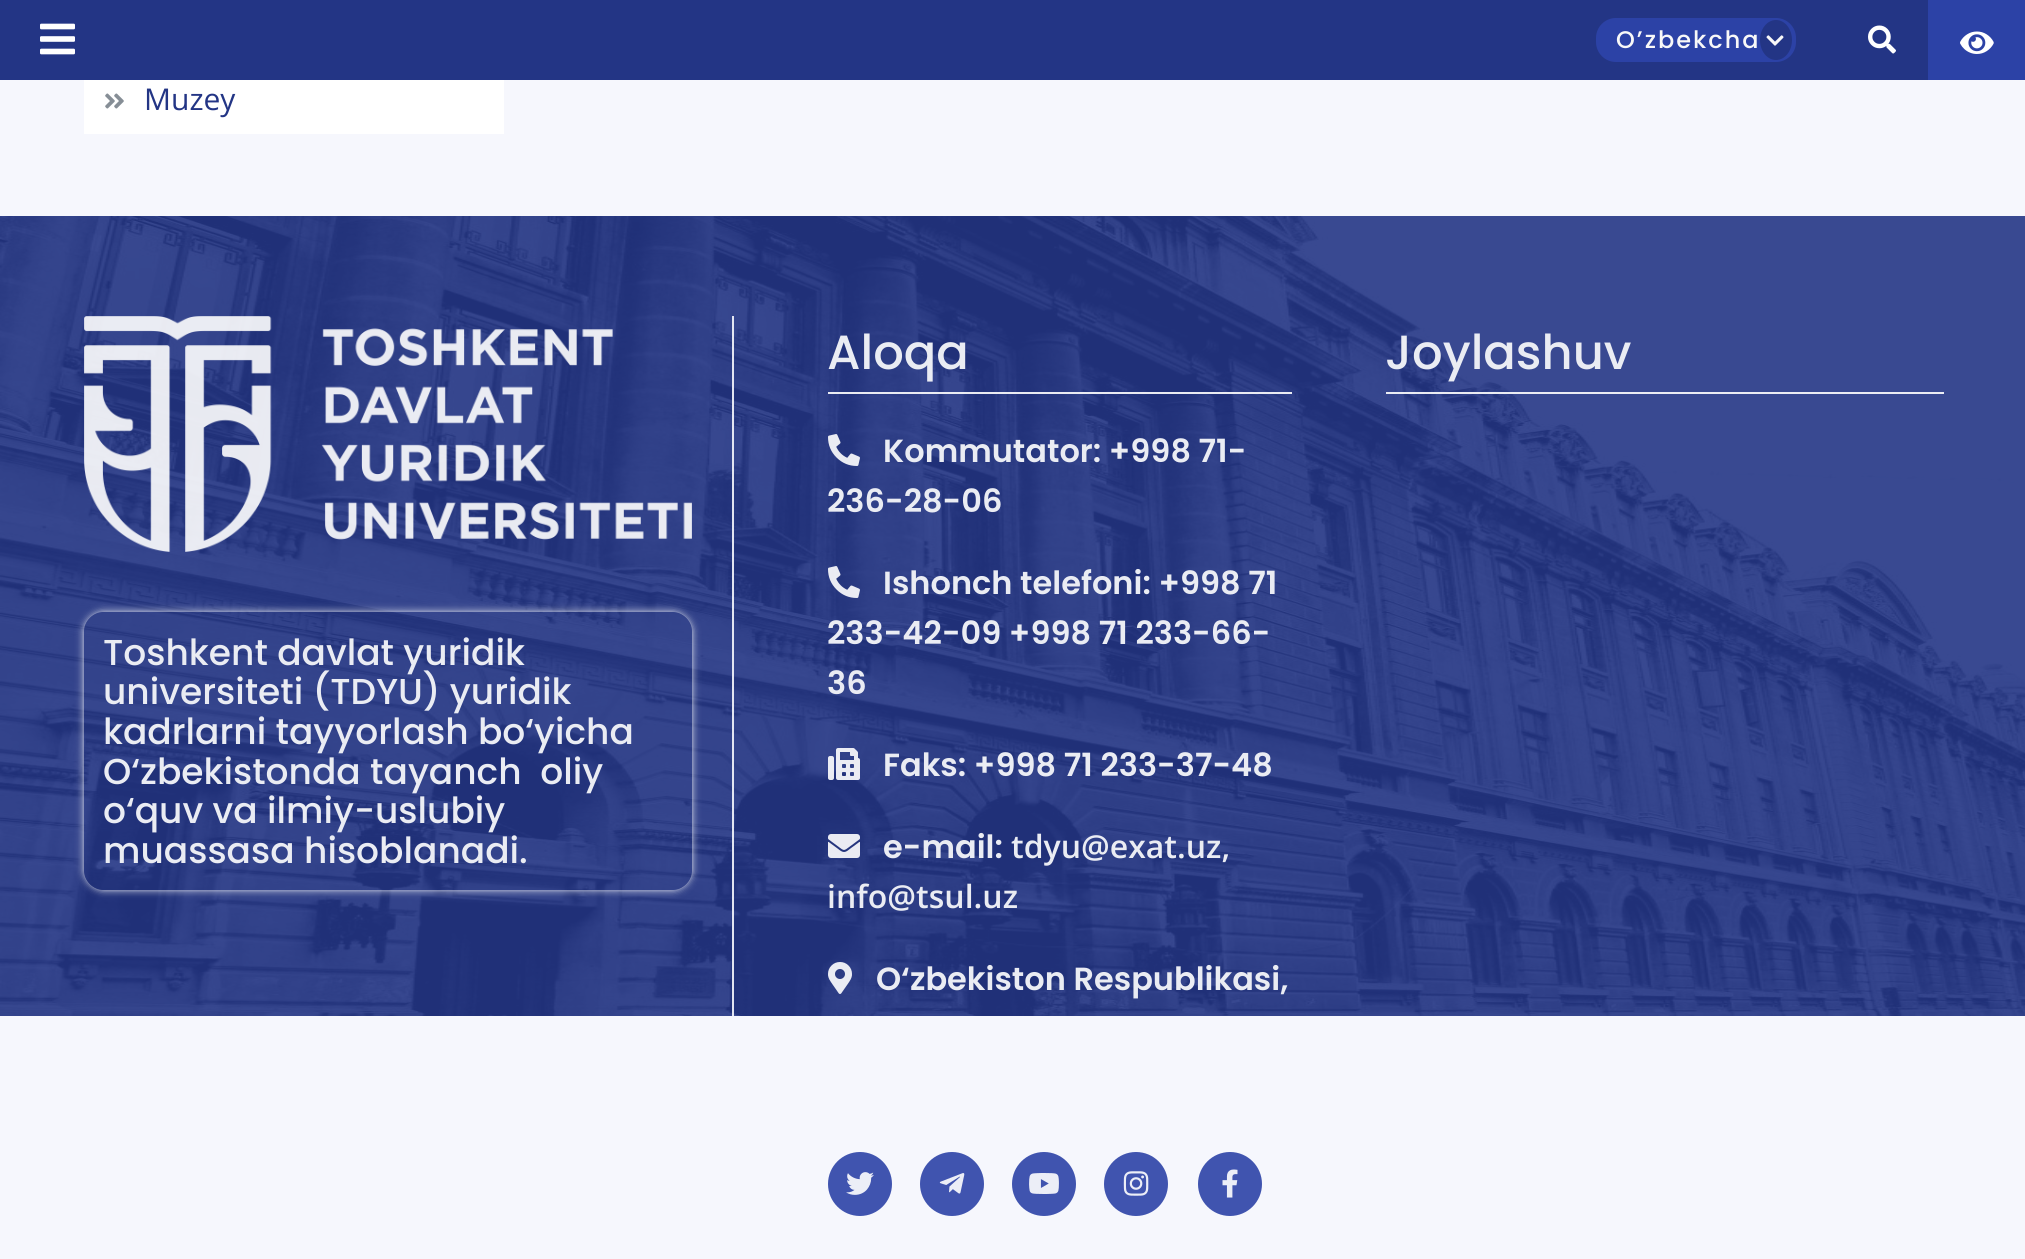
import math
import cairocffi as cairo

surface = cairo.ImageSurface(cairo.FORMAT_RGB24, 2025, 1259)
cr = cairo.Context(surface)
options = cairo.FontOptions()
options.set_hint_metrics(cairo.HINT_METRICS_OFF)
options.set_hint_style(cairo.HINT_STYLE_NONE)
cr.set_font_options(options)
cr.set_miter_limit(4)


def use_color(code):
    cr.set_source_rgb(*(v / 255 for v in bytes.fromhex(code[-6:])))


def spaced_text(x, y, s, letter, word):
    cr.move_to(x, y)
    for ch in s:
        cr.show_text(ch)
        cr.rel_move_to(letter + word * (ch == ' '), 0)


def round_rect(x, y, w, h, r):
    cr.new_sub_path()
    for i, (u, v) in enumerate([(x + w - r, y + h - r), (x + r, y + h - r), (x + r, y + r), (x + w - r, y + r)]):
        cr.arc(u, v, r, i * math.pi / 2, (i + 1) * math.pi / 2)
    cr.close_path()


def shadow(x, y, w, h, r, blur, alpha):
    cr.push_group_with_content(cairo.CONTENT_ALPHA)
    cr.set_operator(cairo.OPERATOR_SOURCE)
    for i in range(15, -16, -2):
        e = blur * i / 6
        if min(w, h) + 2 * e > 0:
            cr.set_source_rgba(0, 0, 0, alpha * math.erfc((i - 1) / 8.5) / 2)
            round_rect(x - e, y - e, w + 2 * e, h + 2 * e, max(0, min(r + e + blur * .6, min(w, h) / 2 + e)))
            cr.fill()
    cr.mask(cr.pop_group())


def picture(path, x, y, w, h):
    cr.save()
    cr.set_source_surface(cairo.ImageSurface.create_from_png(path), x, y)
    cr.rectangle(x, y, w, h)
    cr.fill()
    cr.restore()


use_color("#f6f7fd")
cr.paint()
use_color("#233585")
cr.rectangle(0, 0, 1928, 80)
cr.fill()
picture("img1.png", 40, 23, 35, 32)
use_color("#2c42a6")
round_rect(1596, 18, 200, 44, 20)
cr.fill()
cr.select_font_face("Poppins Medium")
cr.set_font_size(24)
use_color("#f8f8f8")
spaced_text(1616, 48, "Oʼzbekcha", 2, 0)
use_color("#233585")
cr.new_path()
cr.move_to(1776, 20)
cr.curve_to(1785, 20, 1792, 29, 1792, 40)
cr.curve_to(1792, 51, 1785, 60, 1776, 60)
cr.curve_to(1767, 60, 1760, 51, 1760, 40)
cr.curve_to(1760, 29, 1767, 20, 1776, 20)
cr.close_path()
cr.fill()
picture("img2.png", 1766, 35, 18, 11)
picture("img3.png", 1868, 25, 28, 29)
use_color("#2c42a6")
cr.rectangle(1928, 0, 97, 80)
cr.fill()
picture("img4.png", 1960, 31, 34, 23)
use_color("#ffffff")
cr.rectangle(84, 80, 420, 54)
cr.fill()
picture("img5.png", 105, 93, 19, 16)
cr.select_font_face("Open Sans")
cr.set_font_size(30)
use_color("#233585")
cr.move_to(144, 110)
cr.show_text("Muzey")
picture("img6.png", 0, 216, 2025, 800)
cr.set_source_rgba(1, 1, 1, 0.9)
cr.rectangle(828, 392, 464, 2)
cr.fill()
cr.select_font_face("Poppins Medium")
cr.set_font_size(48)
use_color("#eaecf3")
cr.move_to(827, 369)
cr.show_text("Aloqa")
picture("img7.png", 828, 434, 32, 32)
cr.select_font_face("Poppins SemiBold")
cr.set_font_size(32)
cr.move_to(883, 462)
cr.show_text("Kommutator: +998 71-")
cr.move_to(827, 512)
cr.show_text("236-28-06")
picture("img8.png", 828, 566, 32, 32)
cr.move_to(883, 594)
cr.show_text("Ishonch telefoni: +998 71")
cr.move_to(827, 644)
cr.show_text("233-42-09 +998 71 233-66-")
cr.move_to(827, 694)
cr.show_text("36")
picture("img9.png", 828, 748, 32, 32)
cr.move_to(883, 776)
cr.show_text("Faks: +998 71 233-37-48")
picture("img10.png", 828, 834, 32, 24)
cr.move_to(883, 858)
cr.show_text("e-mail:")
cr.select_font_face("Open Sans SemiBold")
cr.move_to(1011, 858)
cr.show_text("tdyu@exat.uz,")
cr.move_to(827, 908)
cr.show_text("info@tsul.uz")
picture("img11.png", 828, 962, 24, 32)
cr.select_font_face("Poppins SemiBold")
cr.move_to(876, 990)
cr.show_text("O‘zbekiston Respublikasi,")
use_color("#4054af")
cr.new_path()
cr.arc(860, 1184, 32, 0, 2 * math.pi)
cr.fill()
picture("img12.png", 846, 1172, 28, 23)
cr.arc(952, 1184, 32, 0, 2 * math.pi)
cr.fill()
picture("img13.png", 939, 1173, 26, 21)
cr.arc(1044, 1184, 32, 0, 2 * math.pi)
cr.fill()
picture("img14.png", 1029, 1173, 30, 21)
cr.arc(1136, 1184, 32, 0, 2 * math.pi)
cr.fill()
picture("img15.png", 1123, 1171, 26, 25)
cr.arc(1230, 1184, 32, 0, 2 * math.pi)
cr.fill()
picture("img16.png", 1222, 1169, 16, 29)
cr.set_source_rgba(1, 1, 1, 0.9)
cr.rectangle(1386, 392, 558, 2)
cr.fill()
cr.select_font_face("Poppins Medium")
cr.set_font_size(48)
use_color("#eaecf3")
cr.move_to(1385, 369)
cr.show_text("Joylashuv")
cr.set_source_rgba(0.965, 0.969, 0.992, 0.9)
cr.rectangle(732, 316, 2, 700)
cr.fill()
picture("img17.png", 84, 316, 608, 236)
cr.save()
cr.set_fill_rule(cairo.FILL_RULE_EVEN_ODD)
cr.new_path()
cr.move_to(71, 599)
cr.line_to(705, 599)
cr.line_to(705, 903)
cr.line_to(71, 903)
cr.close_path()
cr.move_to(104, 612)
cr.line_to(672, 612)
cr.curve_to(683, 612, 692, 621, 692, 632)
cr.line_to(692, 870)
cr.curve_to(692, 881, 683, 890, 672, 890)
cr.line_to(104, 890)
cr.curve_to(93, 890, 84, 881, 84, 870)
cr.line_to(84, 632)
cr.curve_to(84, 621, 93, 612, 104, 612)
cr.close_path()
cr.clip()
use_color("#ffffff")
shadow(84, 612, 608, 278, 20, 4, 0.9)
cr.restore()
cr.set_font_size(36)
use_color("#eaecf3")
cr.move_to(103, 665)
cr.show_text("Toshkent davlat yuridik")
cr.move_to(103, 704)
cr.show_text("universiteti (TDYU) yuridik")
cr.move_to(103, 744)
cr.show_text("kadrlarni tayyorlash bo‘yicha")
cr.move_to(103, 784)
cr.show_text("O‘zbekistonda tayanch  oliy")
cr.move_to(103, 823)
cr.show_text("o‘quv va ilmiy-uslubiy")
cr.move_to(103, 863)
cr.show_text("muassasa hisoblanadi.")
surface.write_to_png("result.png")
